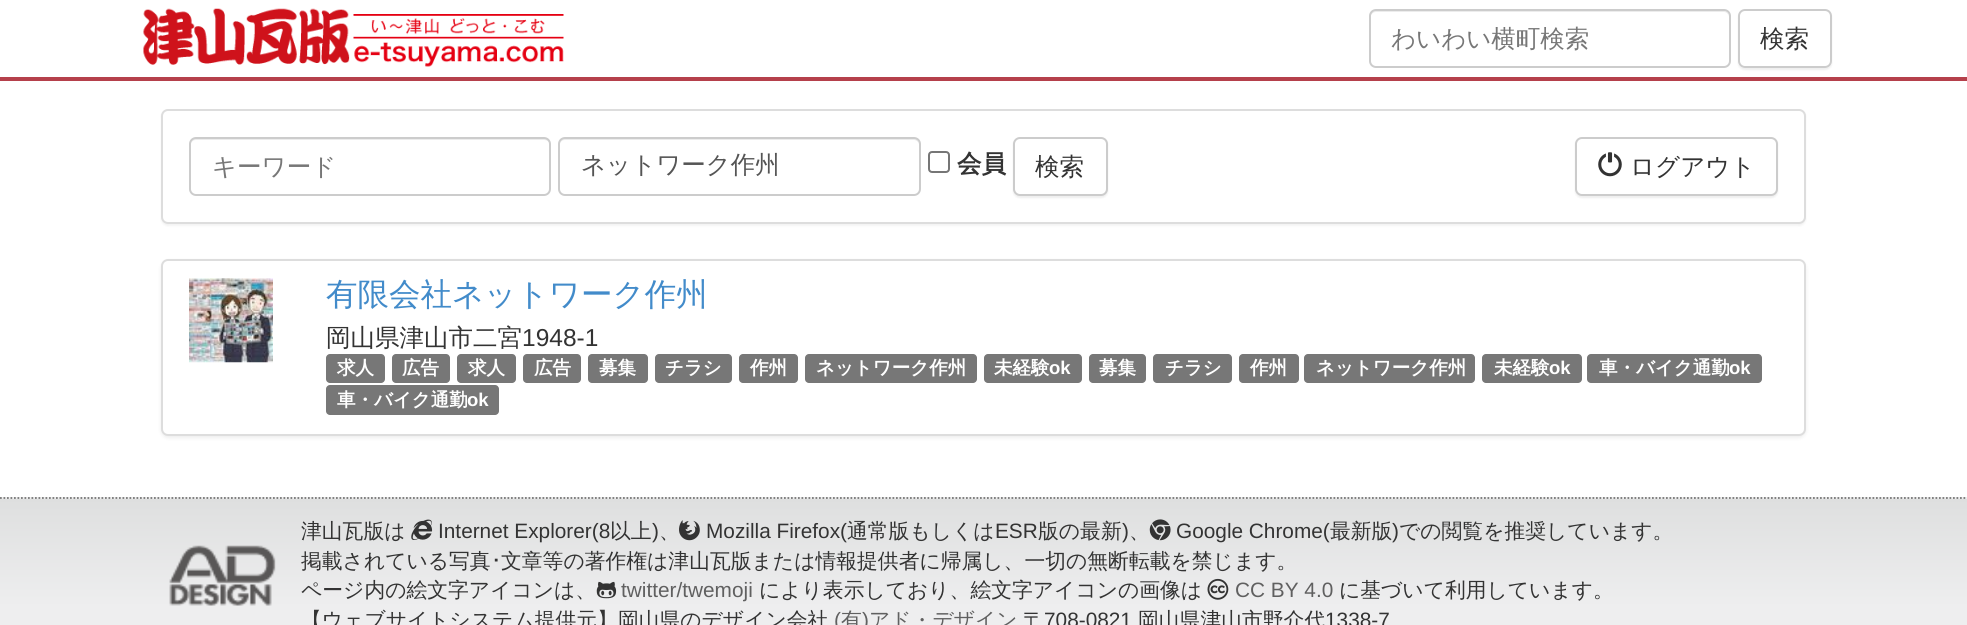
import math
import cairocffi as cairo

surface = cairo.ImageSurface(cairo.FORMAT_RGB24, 1967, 625)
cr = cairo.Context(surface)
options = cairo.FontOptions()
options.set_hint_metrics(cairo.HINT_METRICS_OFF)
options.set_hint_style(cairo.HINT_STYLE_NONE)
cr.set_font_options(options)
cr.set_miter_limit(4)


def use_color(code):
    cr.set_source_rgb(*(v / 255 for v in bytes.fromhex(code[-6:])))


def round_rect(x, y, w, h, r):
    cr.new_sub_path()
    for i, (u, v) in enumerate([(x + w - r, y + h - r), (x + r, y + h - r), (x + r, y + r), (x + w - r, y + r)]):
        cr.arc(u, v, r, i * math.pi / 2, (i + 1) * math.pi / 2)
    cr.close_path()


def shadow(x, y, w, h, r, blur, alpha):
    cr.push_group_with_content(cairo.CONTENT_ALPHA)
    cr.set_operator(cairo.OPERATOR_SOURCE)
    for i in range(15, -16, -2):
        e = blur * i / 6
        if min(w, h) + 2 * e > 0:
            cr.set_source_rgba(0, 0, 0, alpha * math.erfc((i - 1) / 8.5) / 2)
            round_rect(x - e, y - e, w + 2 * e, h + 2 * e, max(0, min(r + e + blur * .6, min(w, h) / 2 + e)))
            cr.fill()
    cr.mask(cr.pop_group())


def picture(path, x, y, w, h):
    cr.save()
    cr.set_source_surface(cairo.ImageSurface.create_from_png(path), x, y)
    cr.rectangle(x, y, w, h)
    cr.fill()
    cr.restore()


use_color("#ffffff")
cr.paint()
use_color("#b5404b")
cr.rectangle(0, 77, 1967, 4)
cr.fill()
picture("img1.png", 143, 8, 421, 59)
use_color("#ececec")
cr.new_path()
cr.move_to(1376, 12)
cr.line_to(1724, 12)
cr.curve_to(1727, 12, 1729, 15, 1729, 18)
cr.curve_to(1729, 15, 1728, 11, 1724, 11)
cr.line_to(1375, 11)
cr.curve_to(1371, 11, 1370, 15, 1370, 18)
cr.curve_to(1370, 15, 1373, 12, 1376, 12)
cr.close_path()
cr.fill()
round_rect(1370, 10, 360, 57, 6)
use_color("#cccccc")
cr.stroke()
cr.select_font_face("WenQuanYi Zen Hei Medium")
cr.set_font_size(24.5)
use_color("#777777")
cr.move_to(1391, 47)
cr.show_text("わいわい横町検索")
cr.save()
cr.set_fill_rule(cairo.FILL_RULE_EVEN_ODD)
cr.new_path()
cr.move_to(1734, 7)
cr.line_to(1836, 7)
cr.line_to(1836, 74)
cr.line_to(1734, 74)
cr.close_path()
cr.move_to(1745, 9)
cr.line_to(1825, 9)
cr.curve_to(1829, 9, 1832, 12, 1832, 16)
cr.line_to(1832, 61)
cr.curve_to(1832, 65, 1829, 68, 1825, 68)
cr.line_to(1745, 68)
cr.curve_to(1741, 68, 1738, 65, 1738, 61)
cr.line_to(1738, 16)
cr.curve_to(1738, 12, 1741, 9, 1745, 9)
cr.close_path()
cr.clip()
use_color("#000000")
shadow(1738, 11, 94, 59, 7, 1, 0.07)
cr.restore()
round_rect(1739, 10, 92, 57, 6)
use_color("#cccccc")
cr.stroke()
use_color("#333333")
cr.move_to(1760, 47)
cr.show_text("検索")
use_color("#000000")
shadow(161, 110, 1645, 116, 7, 1, 0.05)
use_color("#ffffff")
round_rect(162, 110, 1643, 113, 6)
cr.fill_preserve()
use_color("#dddddd")
cr.stroke()
use_color("#ececec")
cr.new_path()
cr.move_to(196, 140)
cr.line_to(544, 140)
cr.curve_to(547, 140, 550, 142, 550, 145)
cr.curve_to(550, 142, 549, 138, 545, 138)
cr.line_to(196, 138)
cr.curve_to(192, 138, 191, 142, 191, 145)
cr.curve_to(191, 142, 193, 140, 196, 140)
cr.close_path()
cr.fill()
round_rect(190, 138, 360, 57, 6)
use_color("#cccccc")
cr.stroke()
use_color("#777777")
cr.move_to(212, 175)
cr.show_text("キーワード")
use_color("#ececec")
cr.new_path()
cr.move_to(565, 140)
cr.line_to(914, 140)
cr.curve_to(916, 140, 919, 142, 919, 145)
cr.curve_to(919, 142, 918, 138, 914, 138)
cr.line_to(565, 138)
cr.curve_to(561, 138, 560, 142, 560, 145)
cr.curve_to(560, 142, 562, 140, 565, 140)
cr.close_path()
cr.fill()
round_rect(559, 138, 361, 57, 6)
use_color("#cccccc")
cr.stroke()
use_color("#555555")
cr.move_to(581, 173)
cr.show_text("ネットワーク作州")
round_rect(929, 152, 20, 20, 3)
use_color("#767676")
cr.stroke()
cr.select_font_face("WenQuanYi Zen Hei", cairo.FONT_SLANT_NORMAL, cairo.FONT_WEIGHT_BOLD)
use_color("#333333")
cr.move_to(957, 172)
cr.show_text("会員")
use_color("#000000")
shadow(1013, 138, 95, 60, 7, 1, 0.07)
use_color("#ffffff")
round_rect(1014, 138, 93, 57, 6)
cr.fill_preserve()
use_color("#cccccc")
cr.stroke()
cr.select_font_face("WenQuanYi Zen Hei Medium")
use_color("#333333")
cr.move_to(1035, 175)
cr.show_text("検索")
use_color("#000000")
shadow(1575, 138, 203, 60, 7, 1, 0.07)
use_color("#ffffff")
round_rect(1576, 138, 201, 57, 6)
cr.fill_preserve()
use_color("#cccccc")
cr.stroke()
picture("img2.png", 1598, 152, 24, 25)
use_color("#333333")
cr.move_to(1630, 175)
cr.show_text("ログアウト")
use_color("#000000")
shadow(161, 261, 1645, 177, 7, 2, 0.07)
use_color("#ffffff")
round_rect(162, 260, 1643, 175, 6)
cr.fill_preserve()
use_color("#dddddd")
cr.stroke()
picture("img3.png", 189, 278, 84, 85)
cr.set_font_size(31.5)
use_color("#428bca")
cr.move_to(326, 305)
cr.show_text("有限会社ネットワーク作州")
cr.set_font_size(24.5)
use_color("#333333")
cr.move_to(326, 346)
cr.show_text("岡山県津山市二宮")
cr.select_font_face("Liberation Sans")
cr.move_to(522, 346)
cr.show_text("1948-1")
use_color("#777777")
round_rect(326, 354, 59, 29, 4)
cr.fill()
cr.select_font_face("WenQuanYi Zen Hei", cairo.FONT_SLANT_NORMAL, cairo.FONT_WEIGHT_BOLD)
cr.set_font_size(18.5)
use_color("#ffffff")
cr.move_to(337, 374)
cr.show_text("求人")
use_color("#777777")
round_rect(392, 354, 58, 29, 4)
cr.fill()
use_color("#ffffff")
cr.move_to(402, 374)
cr.show_text("広告")
use_color("#777777")
round_rect(457, 354, 59, 29, 4)
cr.fill()
use_color("#ffffff")
cr.move_to(468, 374)
cr.show_text("求人")
use_color("#777777")
round_rect(523, 354, 58, 29, 4)
cr.fill()
use_color("#ffffff")
cr.move_to(534, 374)
cr.show_text("広告")
use_color("#777777")
round_rect(588, 354, 60, 29, 4)
cr.fill()
use_color("#ffffff")
cr.move_to(599, 374)
cr.show_text("募集")
use_color("#777777")
round_rect(655, 354, 77, 29, 4)
cr.fill()
use_color("#ffffff")
cr.move_to(665, 374)
cr.show_text("チラシ")
use_color("#777777")
round_rect(739, 354, 59, 29, 4)
cr.fill()
use_color("#ffffff")
cr.move_to(750, 374)
cr.show_text("作州")
use_color("#777777")
round_rect(805, 354, 172, 29, 4)
cr.fill()
use_color("#ffffff")
cr.move_to(816, 374)
cr.show_text("ネットワーク作州")
use_color("#777777")
round_rect(984, 354, 98, 29, 4)
cr.fill()
use_color("#ffffff")
cr.move_to(994, 374)
cr.show_text("未経験")
cr.select_font_face("Liberation Sans", cairo.FONT_SLANT_NORMAL, cairo.FONT_WEIGHT_BOLD)
cr.move_to(1049, 374)
cr.show_text("ok")
use_color("#777777")
round_rect(1089, 354, 57, 29, 4)
cr.fill()
cr.select_font_face("WenQuanYi Zen Hei", cairo.FONT_SLANT_NORMAL, cairo.FONT_WEIGHT_BOLD)
use_color("#ffffff")
cr.move_to(1099, 374)
cr.show_text("募集")
use_color("#777777")
round_rect(1153, 354, 79, 29, 4)
cr.fill()
use_color("#ffffff")
cr.move_to(1165, 374)
cr.show_text("チラシ")
use_color("#777777")
round_rect(1239, 354, 60, 29, 4)
cr.fill()
use_color("#ffffff")
cr.move_to(1250, 374)
cr.show_text("作州")
use_color("#777777")
round_rect(1304, 354, 171, 29, 4)
cr.fill()
use_color("#ffffff")
cr.move_to(1316, 374)
cr.show_text("ネットワーク作州")
use_color("#777777")
round_rect(1482, 354, 100, 29, 4)
cr.fill()
use_color("#ffffff")
cr.move_to(1494, 374)
cr.show_text("未経験")
cr.select_font_face("Liberation Sans", cairo.FONT_SLANT_NORMAL, cairo.FONT_WEIGHT_BOLD)
cr.move_to(1549, 374)
cr.show_text("ok")
use_color("#777777")
round_rect(1587, 354, 175, 29, 4)
cr.fill()
cr.select_font_face("WenQuanYi Zen Hei", cairo.FONT_SLANT_NORMAL, cairo.FONT_WEIGHT_BOLD)
use_color("#ffffff")
cr.move_to(1599, 374)
cr.show_text("車・バイク通勤")
cr.select_font_face("Liberation Sans", cairo.FONT_SLANT_NORMAL, cairo.FONT_WEIGHT_BOLD)
cr.move_to(1729, 374)
cr.show_text("ok")
use_color("#777777")
round_rect(326, 385, 173, 30, 4)
cr.fill()
cr.select_font_face("WenQuanYi Zen Hei", cairo.FONT_SLANT_NORMAL, cairo.FONT_WEIGHT_BOLD)
use_color("#ffffff")
cr.move_to(337, 406)
cr.show_text("車・バイク通勤")
cr.select_font_face("Liberation Sans", cairo.FONT_SLANT_NORMAL, cairo.FONT_WEIGHT_BOLD)
cr.move_to(467, 406)
cr.show_text("ok")
use_color("#eeeeee")
cr.rectangle(0, 497, 1967, 2)
cr.fill()
cr.new_path()
cr.move_to(0, 498)
cr.line_to(1967, 498)
use_color("#777777")
cr.set_line_width(1.8)
cr.set_dash([1.75, 1.75])
cr.stroke()
gradient = cairo.LinearGradient(984, 499, 984, 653)
gradient.add_color_stop_rgba(0, 0.871, 0.875, 0.875, 1)
gradient.add_color_stop_rgba(0.7, 0.933, 0.933, 0.937, 1)
cr.set_source(gradient)
cr.rectangle(0, 499, 1967, 126)
cr.fill()
picture("img4.png", 169, 545, 107, 61)
cr.select_font_face("WenQuanYi Zen Hei Medium")
cr.set_font_size(20.8)
use_color("#333333")
cr.move_to(301, 538)
cr.show_text("津山瓦版は")
picture("img5.png", 411, 519, 22, 21)
cr.select_font_face("Liberation Sans")
cr.move_to(438, 538)
cr.show_text("Internet Explorer(8")
cr.select_font_face("WenQuanYi Zen Hei Medium")
cr.move_to(610, 538)
cr.show_text("以上")
cr.select_font_face("Liberation Sans")
cr.move_to(652, 538)
cr.show_text(")")
cr.select_font_face("WenQuanYi Zen Hei Medium")
cr.move_to(659, 538)
cr.show_text("、")
picture("img6.png", 679, 520, 21, 21)
cr.select_font_face("Liberation Sans")
cr.move_to(706, 538)
cr.show_text("Mozilla Firefox(")
cr.select_font_face("WenQuanYi Zen Hei Medium")
cr.move_to(847, 538)
cr.show_text("通常版もしくは")
cr.select_font_face("Liberation Sans")
cr.move_to(995, 538)
cr.show_text("ESR")
cr.select_font_face("WenQuanYi Zen Hei Medium")
cr.move_to(1038, 538)
cr.show_text("版の最新")
cr.select_font_face("Liberation Sans")
cr.move_to(1122, 538)
cr.show_text(")")
cr.select_font_face("WenQuanYi Zen Hei Medium")
cr.move_to(1129, 538)
cr.show_text("、")
picture("img7.png", 1149, 519, 22, 22)
cr.select_font_face("Liberation Sans")
cr.move_to(1176, 538)
cr.show_text("Google Chrome(")
cr.select_font_face("WenQuanYi Zen Hei Medium")
cr.move_to(1330, 538)
cr.show_text("最新版")
cr.select_font_face("Liberation Sans")
cr.move_to(1392, 538)
cr.show_text(")")
cr.select_font_face("WenQuanYi Zen Hei Medium")
cr.move_to(1399, 538)
cr.show_text("での閲覧を推奨しています。")
cr.move_to(301, 568)
cr.show_text("掲載されている写真")
cr.select_font_face("IPAPGothic")
cr.move_to(491, 568)
cr.show_text("･")
cr.select_font_face("WenQuanYi Zen Hei Medium")
cr.move_to(501, 568)
cr.show_text("文章等の著作権は津山瓦版または情報提供者に帰属し、一切の無断転載を禁じます。")
cr.move_to(301, 597)
cr.show_text("ページ内の絵文字アイコンは、")
picture("img8.png", 596, 581, 21, 18)
cr.select_font_face("Liberation Sans")
use_color("#606060")
cr.move_to(621, 597)
cr.show_text("twitter/twemoji")
cr.select_font_face("WenQuanYi Zen Hei Medium")
use_color("#333333")
cr.move_to(759, 597)
cr.show_text("により表示しており、絵文字アイコンの画像は")
picture("img9.png", 1207, 578, 22, 22)
cr.select_font_face("Liberation Sans")
use_color("#606060")
cr.move_to(1235, 597)
cr.show_text("CC BY 4.0")
cr.select_font_face("WenQuanYi Zen Hei Medium")
use_color("#333333")
cr.move_to(1339, 597)
cr.show_text("に基づいて利用しています。")
cr.move_to(301, 627)
cr.show_text("【ウェブサイトシステム提供元】岡山県のデザイン会社")
cr.select_font_face("Liberation Sans")
use_color("#606060")
cr.move_to(834, 627)
cr.show_text("(")
cr.select_font_face("WenQuanYi Zen Hei Medium")
cr.move_to(841, 627)
cr.show_text("有")
cr.select_font_face("Liberation Sans")
cr.move_to(862, 627)
cr.show_text(")")
cr.select_font_face("WenQuanYi Zen Hei Medium")
cr.move_to(869, 627)
cr.show_text("アド・デザイン")
use_color("#333333")
cr.move_to(1023, 627)
cr.show_text("〒")
cr.select_font_face("Liberation Sans")
cr.move_to(1044, 627)
cr.show_text("708-0821")
cr.select_font_face("WenQuanYi Zen Hei Medium")
cr.move_to(1138, 627)
cr.show_text("岡山県津山市野介代")
cr.select_font_face("Liberation Sans")
cr.move_to(1325, 627)
cr.show_text("1338-7")
surface.write_to_png("result.png")
